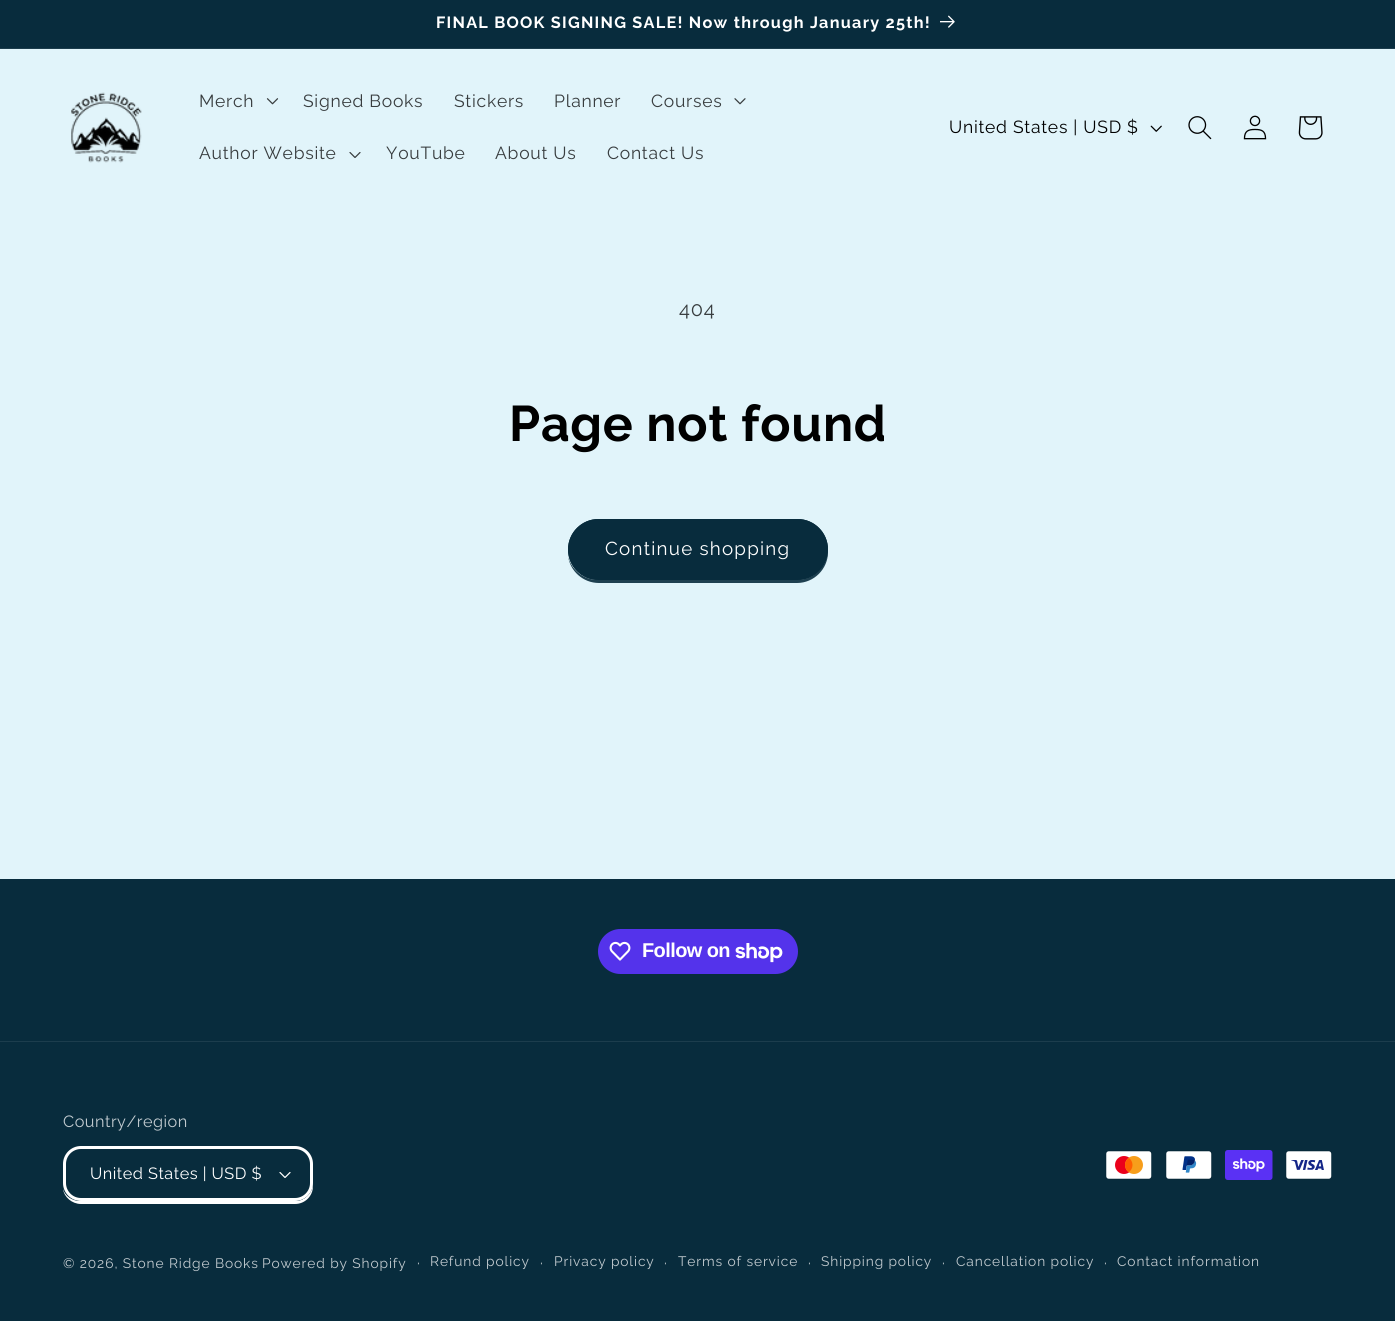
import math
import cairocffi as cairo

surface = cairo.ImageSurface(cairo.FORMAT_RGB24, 1395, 1321)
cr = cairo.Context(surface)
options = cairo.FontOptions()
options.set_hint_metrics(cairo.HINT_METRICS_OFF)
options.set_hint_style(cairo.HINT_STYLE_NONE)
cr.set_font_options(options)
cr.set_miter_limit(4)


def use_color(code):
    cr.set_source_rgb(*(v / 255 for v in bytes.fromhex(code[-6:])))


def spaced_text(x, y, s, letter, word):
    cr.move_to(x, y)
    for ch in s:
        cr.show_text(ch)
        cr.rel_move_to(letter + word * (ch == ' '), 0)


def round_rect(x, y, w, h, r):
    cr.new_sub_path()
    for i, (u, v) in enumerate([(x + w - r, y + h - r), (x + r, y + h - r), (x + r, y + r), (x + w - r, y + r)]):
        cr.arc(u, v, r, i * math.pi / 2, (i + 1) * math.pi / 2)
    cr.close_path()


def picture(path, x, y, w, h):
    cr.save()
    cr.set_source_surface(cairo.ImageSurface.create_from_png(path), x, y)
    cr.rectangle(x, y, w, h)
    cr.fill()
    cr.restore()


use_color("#e1f4fa")
cr.paint()
use_color("#082c3d")
cr.rectangle(0, 0, 1395, 48)
cr.fill()
use_color("#1c3d4d")
cr.rectangle(0, 48, 1395, 1)
cr.fill()
cr.select_font_face("Raleway", cairo.FONT_SLANT_NORMAL, cairo.FONT_WEIGHT_BOLD)
cr.set_font_size(16.25)
use_color("#ffffff")
spaced_text(436, 28, "FINAL BOOK SIGNING SALE! Now through January 25th!", 1.25, 0)
picture("img1.png", 940, 15, 15, 13)
picture("img2.png", 71, 92, 71, 71)
cr.select_font_face("Raleway")
cr.set_font_size(17.5)
use_color("#383d3f")
spaced_text(199, 107, "Merch", 0.75, 0)
picture("img3.png", 266, 98, 13, 7)
spaced_text(303, 107, "Signed Books", 0.75, 0)
spaced_text(454, 107, "Stickers", 0.75, 0)
spaced_text(554, 107, "Planner", 0.75, 0)
spaced_text(651, 107, "Courses", 0.75, 0)
picture("img4.png", 734, 98, 12, 7)
spaced_text(199, 159, "Author Website", 0.75, 0)
picture("img5.png", 349, 152, 12, 6)
spaced_text(386, 159, "YouTube", 0.75, 0)
spaced_text(495, 159, "About Us", 0.75, 0)
spaced_text(607, 159, "Contact Us", 0.75, 0)
use_color("#000000")
spaced_text(949, 133, "United States | USD $", 0.75, 0)
picture("img6.png", 1150, 125, 12, 7)
picture("img7.png", 1188, 116, 24, 24)
picture("img8.png", 1243, 115, 24, 25)
picture("img9.png", 1298, 116, 25, 24)
cr.set_font_size(20)
use_color("#383d3f")
spaced_text(679, 316, "404", 0.75, 0)
cr.select_font_face("Raleway", cairo.FONT_SLANT_NORMAL, cairo.FONT_WEIGHT_BOLD)
cr.set_font_size(50)
use_color("#000000")
spaced_text(509, 441, "Page not found", 0.75, 0)
use_color("#1e4050")
cr.new_path()
cr.move_to(568, 556)
cr.curve_to(570, 571, 583, 583, 599, 583)
cr.line_to(797, 583)
cr.curve_to(814, 583, 828, 569, 828, 552)
cr.line_to(827, 545)
cr.line_to(828, 549)
cr.curve_to(828, 566, 814, 580, 797, 580)
cr.line_to(598, 580)
cr.curve_to(584, 580, 571, 570, 568, 556)
cr.close_path()
cr.fill()
use_color("#082c3d")
round_rect(568, 519, 260, 61, 30.5)
cr.fill()
round_rect(569.5, 520.5, 257, 58, 29)
cr.set_line_width(3)
cr.stroke()
cr.select_font_face("Raleway")
cr.set_font_size(18.75)
use_color("#ffffff")
spaced_text(605, 555, "Continue shopping", 1.25, 0)
use_color("#082c3d")
cr.rectangle(0, 879, 1395, 442)
cr.fill()
use_color("#5433eb")
round_rect(598, 929, 200, 45, 22.5)
cr.fill()
picture("img10.png", 609, 941, 22, 20)
cr.select_font_face("Liberation Sans", cairo.FONT_SLANT_NORMAL, cairo.FONT_WEIGHT_BOLD)
cr.set_font_size(20)
use_color("#ffffff")
spaced_text(642, 957, "Follow on", -0.6, 0)
picture("img11.png", 735, 943, 48, 20)
use_color("#1c3d4d")
cr.rectangle(0, 1041, 1395, 1)
cr.fill()
cr.select_font_face("Raleway")
cr.set_font_size(16.25)
use_color("#c1cacf")
spaced_text(63, 1127, "Country/region", 0.5, 0)
use_color("#ffffff")
cr.new_path()
cr.move_to(63, 1189)
cr.curve_to(64, 1197, 72, 1204, 81, 1204)
cr.line_to(295, 1204)
cr.curve_to(305, 1204, 313, 1196, 313, 1186)
cr.line_to(313, 1167)
cr.line_to(312, 1163)
cr.line_to(312, 1184)
cr.curve_to(312, 1193, 305, 1201, 295, 1201)
cr.line_to(80, 1201)
cr.curve_to(72, 1201, 65, 1196, 63, 1189)
cr.close_path()
cr.fill()
use_color("#082c3d")
round_rect(63, 1146, 250, 55, 18)
cr.fill()
picture("img12.png", 279, 1172, 12, 6)
round_rect(64.5, 1147.5, 247, 52, 16.5)
use_color("#ffffff")
cr.stroke()
spaced_text(90, 1179, "United States | USD $", 0.5, 0)
picture("img13.png", 1105, 1150, 47, 30)
picture("img14.png", 1165, 1150, 47, 30)
picture("img15.png", 1225, 1150, 48, 30)
picture("img16.png", 1285, 1150, 47, 30)
cr.set_font_size(13.75)
use_color("#c1cacf")
spaced_text(63, 1268, "© 2026, Stone Ridge Books", 0.9, 0)
spaced_text(262, 1268, "Powered by Shopify", 0.9, 0)
cr.set_font_size(15)
spaced_text(417, 1268, "·", 0.9, 0)
cr.set_font_size(13.75)
spaced_text(430, 1266, "Refund policy", 0.9, 0)
cr.set_font_size(15)
spaced_text(540, 1268, "·", 0.9, 0)
cr.set_font_size(13.75)
spaced_text(554, 1266, "Privacy policy", 0.9, 0)
cr.set_font_size(15)
spaced_text(664, 1268, "·", 0.9, 0)
cr.set_font_size(13.75)
spaced_text(678, 1266, "Terms of service", 0.9, 0)
cr.set_font_size(15)
spaced_text(808, 1268, "·", 0.9, 0)
cr.set_font_size(13.75)
spaced_text(821, 1266, "Shipping policy", 0.9, 0)
cr.set_font_size(15)
spaced_text(942, 1268, "·", 0.9, 0)
cr.set_font_size(13.75)
spaced_text(956, 1266, "Cancellation policy", 0.9, 0)
cr.set_font_size(15)
spaced_text(1104, 1268, "·", 0.9, 0)
cr.set_font_size(13.75)
spaced_text(1117, 1266, "Contact information", 0.9, 0)
surface.write_to_png("result.png")
